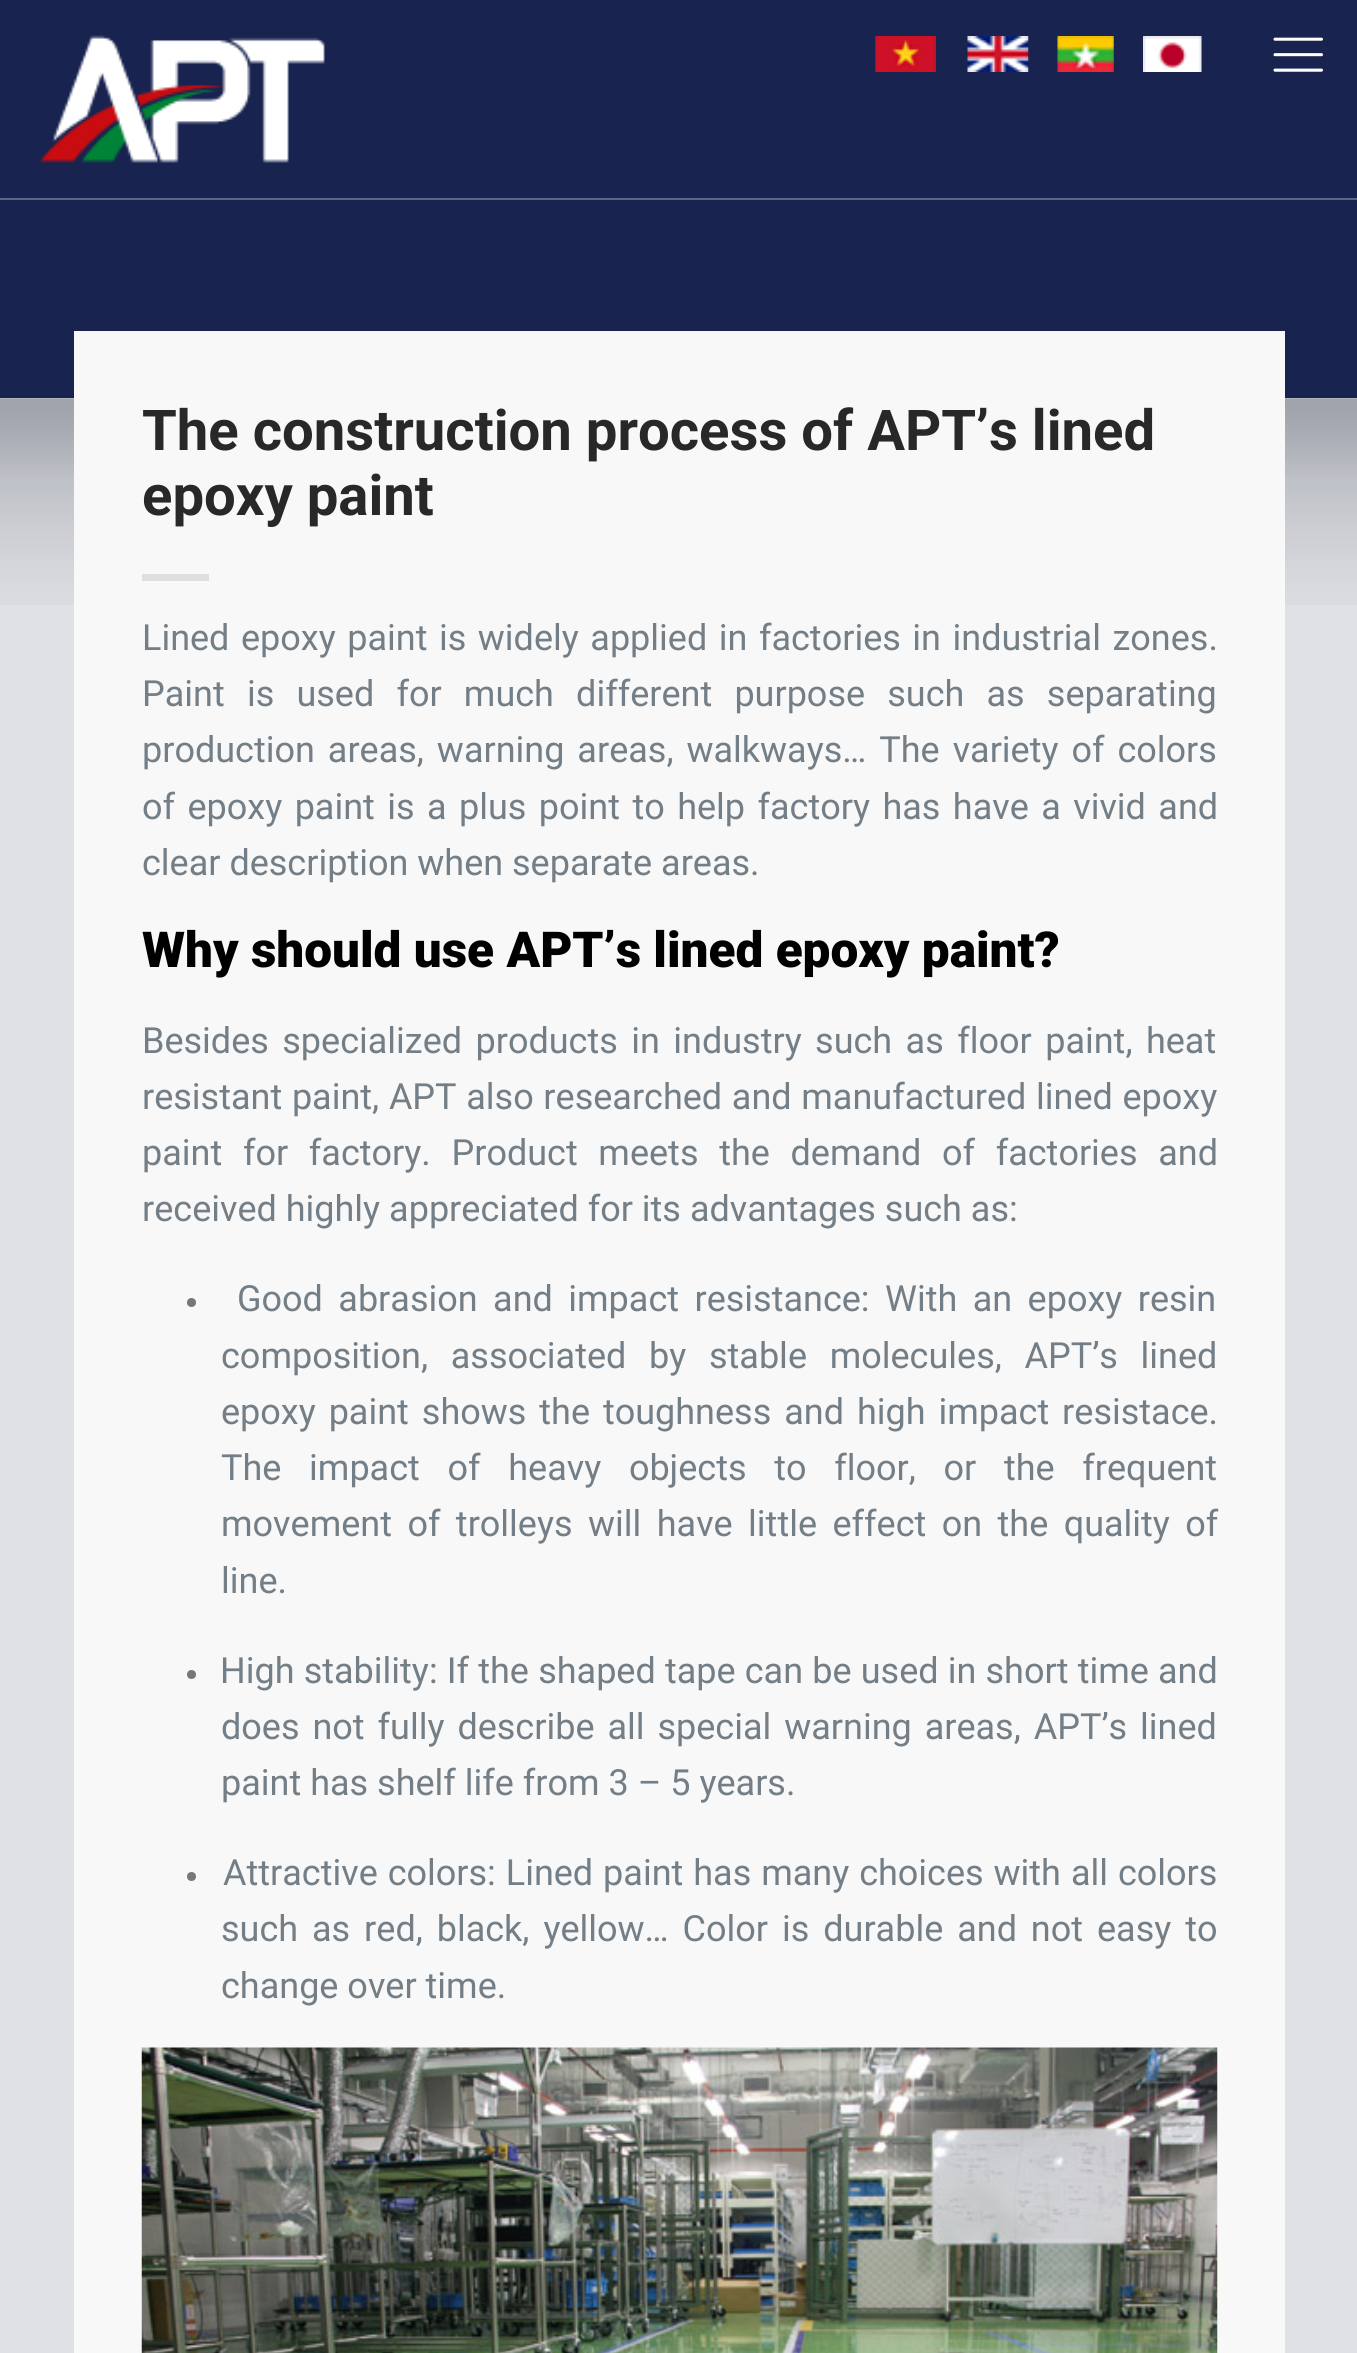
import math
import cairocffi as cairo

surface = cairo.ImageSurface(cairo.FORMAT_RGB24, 1357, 2353)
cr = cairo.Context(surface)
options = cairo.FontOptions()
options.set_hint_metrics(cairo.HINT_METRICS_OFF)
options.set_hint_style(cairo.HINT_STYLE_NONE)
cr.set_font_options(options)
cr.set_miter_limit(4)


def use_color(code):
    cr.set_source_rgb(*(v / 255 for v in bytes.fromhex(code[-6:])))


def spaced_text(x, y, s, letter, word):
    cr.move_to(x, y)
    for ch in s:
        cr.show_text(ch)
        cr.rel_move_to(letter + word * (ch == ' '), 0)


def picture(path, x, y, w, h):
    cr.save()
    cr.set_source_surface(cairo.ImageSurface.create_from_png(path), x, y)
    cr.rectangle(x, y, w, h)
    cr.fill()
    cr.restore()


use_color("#e0e1e5")
cr.paint()
use_color("#182350")
cr.rectangle(0, 0, 1357, 398)
cr.fill()
use_color("#5d6585")
cr.rectangle(0, 198, 1357, 2)
cr.fill()
picture("img1.png", 40, 35, 285, 128)
picture("img2.png", 875, 36, 61, 36)
picture("img3.png", 967, 36, 62, 36)
picture("img4.png", 1057, 36, 57, 36)
picture("img5.png", 1143, 36, 59, 36)
picture("img6.png", 1273, 37, 50, 35)
picture("img7.png", 0, 398, 1357, 207)
use_color("#f8f8f8")
cr.rectangle(74, 331, 1211, 2022)
cr.fill()
cr.select_font_face("Roboto", cairo.FONT_SLANT_NORMAL, cairo.FONT_WEIGHT_BOLD)
cr.set_font_size(56.25)
use_color("#282828")
cr.move_to(142, 450)
cr.show_text("The construction process of APT’s lined")
cr.move_to(142, 515)
cr.show_text("epoxy paint")
use_color("#dfdfdf")
cr.rectangle(142, 574, 67, 7)
cr.fill()
cr.select_font_face("Roboto")
cr.set_font_size(36)
use_color("#737e86")
spaced_text(142, 650, "Lined epoxy paint is widely applied in factories in industrial zones.", 0, 2.6)
spaced_text(142, 706, "Paint is used for much different purpose such as separating", 0, 13.25)
spaced_text(142, 762, "production areas, warning areas, walkways… The variety of colors", 0, 4)
spaced_text(142, 819, "of epoxy paint is a plus point to help factory has have a vivid and", 0, 3.5)
cr.move_to(142, 875)
cr.show_text("clear description when separate areas.")
cr.select_font_face("Roboto Black")
cr.set_font_size(49.5)
use_color("#000000")
cr.move_to(142, 967)
cr.show_text("Why should use APT’s lined epoxy paint?")
cr.select_font_face("Roboto")
cr.set_font_size(36)
use_color("#737e86")
spaced_text(142, 1053, "Besides specialized products in industry such as floor paint, heat", 0, 4.5)
spaced_text(142, 1109, "resistant paint, APT also researched and manufactured lined epoxy", 0, 0.75)
spaced_text(142, 1165, "paint for factory. Product meets the demand of factories and", 0, 11.75)
cr.move_to(142, 1221)
cr.show_text("received highly appreciated for its advantages such as:")
use_color("#777777")
cr.new_path()
cr.arc(191.5, 1302.5, 4.5, 0, 2 * math.pi)
cr.fill()
use_color("#737e86")
spaced_text(237, 1311, "Good abrasion and impact resistance: With an epoxy resin", 0, 6.5)
spaced_text(221, 1368, "composition, associated by stable molecules, APT’s lined", 0, 13.75)
spaced_text(221, 1424, "epoxy paint shows the toughness and high impact resistace.", 0, 4)
spaced_text(221, 1480, "The impact of heavy objects to floor, or the frequent", 0, 18.75)
spaced_text(221, 1536, "movement of trolleys will have little effect on the quality of", 0, 6.5)
cr.move_to(221, 1593)
cr.show_text("line.")
use_color("#777777")
cr.new_path()
cr.arc(191.5, 1674.5, 4.5, 0, 2 * math.pi)
cr.fill()
use_color("#737e86")
spaced_text(220, 1683, "High stability: If the shaped tape can be used in short time and", 0, 0.25)
spaced_text(221, 1739, "does not fully describe all special warning areas, APT’s lined", 0, 4)
cr.move_to(221, 1795)
cr.show_text("paint has shelf life from 3 – 5 years.")
use_color("#777777")
cr.new_path()
cr.arc(191.5, 1876.5, 4.5, 0, 2 * math.pi)
cr.fill()
use_color("#737e86")
spaced_text(223, 1885, "Attractive colors: Lined paint has many choices with all colors", 0, 1)
spaced_text(221, 1941, "such as red, black, yellow… Color is durable and not easy to", 0, 5)
cr.move_to(221, 1998)
cr.show_text("change over time.")
picture("img8.png", 141, 2047, 1077, 306)
surface.write_to_png("result.png")
